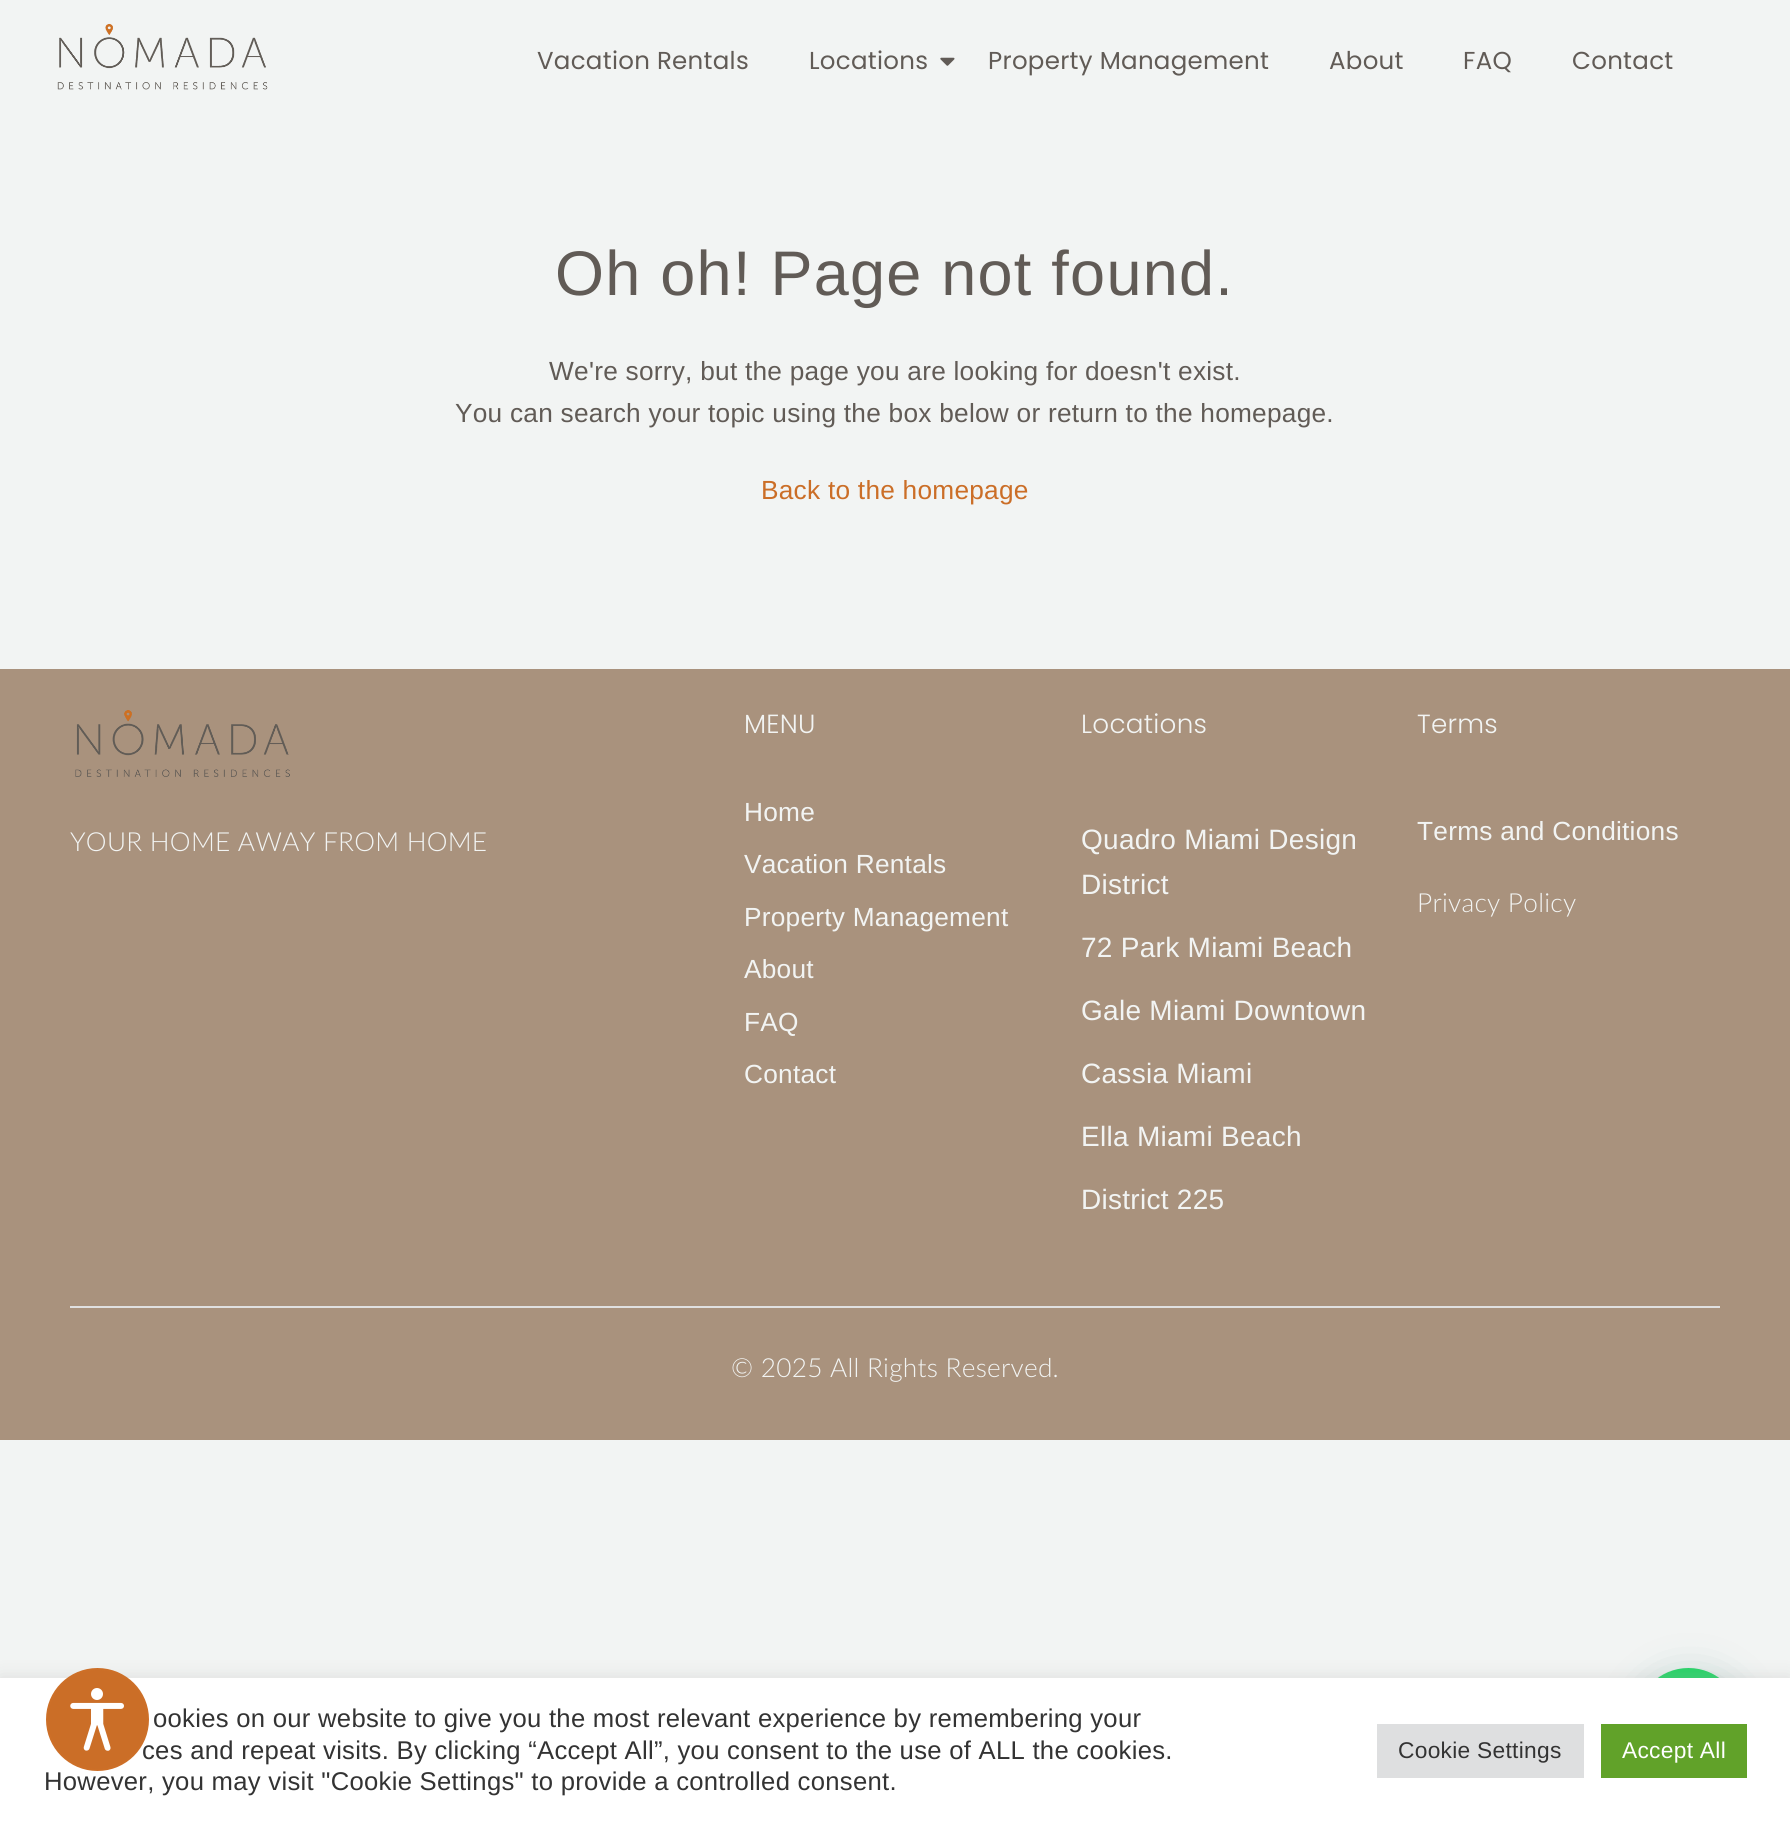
import math
import cairocffi as cairo

surface = cairo.ImageSurface(cairo.FORMAT_RGB24, 1790, 1821)
cr = cairo.Context(surface)
options = cairo.FontOptions()
options.set_hint_metrics(cairo.HINT_METRICS_OFF)
options.set_hint_style(cairo.HINT_STYLE_NONE)
cr.set_font_options(options)
cr.set_miter_limit(4)


def use_color(code):
    cr.set_source_rgb(*(v / 255 for v in bytes.fromhex(code[-6:])))


def spaced_text(x, y, s, letter, word):
    cr.move_to(x, y)
    for ch in s:
        cr.show_text(ch)
        cr.rel_move_to(letter + word * (ch == ' '), 0)


def round_rect(x, y, w, h, r):
    cr.new_sub_path()
    for i, (u, v) in enumerate([(x + w - r, y + h - r), (x + r, y + h - r), (x + r, y + r), (x + w - r, y + r)]):
        cr.arc(u, v, r, i * math.pi / 2, (i + 1) * math.pi / 2)
    cr.close_path()


def shadow(x, y, w, h, r, blur, alpha):
    cr.push_group_with_content(cairo.CONTENT_ALPHA)
    cr.set_operator(cairo.OPERATOR_SOURCE)
    for i in range(15, -16, -2):
        e = blur * i / 6
        if min(w, h) + 2 * e > 0:
            cr.set_source_rgba(0, 0, 0, alpha * math.erfc((i - 1) / 8.5) / 2)
            round_rect(x - e, y - e, w + 2 * e, h + 2 * e, max(0, min(r + e + blur * .6, min(w, h) / 2 + e)))
            cr.fill()
    cr.mask(cr.pop_group())


def picture(path, x, y, w, h):
    cr.save()
    cr.set_source_surface(cairo.ImageSurface.create_from_png(path), x, y)
    cr.rectangle(x, y, w, h)
    cr.fill()
    cr.restore()


use_color("#f2f4f3")
cr.paint()
picture("img1.png", 57, 23, 211, 67)
cr.select_font_face("Poppins")
cr.set_font_size(24.5)
use_color("#615b56")
spaced_text(537, 69, "Vacation Rentals", 0.28, 0)
spaced_text(809, 69, "Locations", 0.28, 0)
picture("img2.png", 940, 57, 15, 9)
spaced_text(988, 69, "Property Management", 0.28, 0)
spaced_text(1329, 69, "About", 0.28, 0)
spaced_text(1463, 69, "FAQ", 0.28, 0)
spaced_text(1572, 69, "Contact", 0.28, 0)
cr.select_font_face("Liberation Sans")
cr.set_font_size(63)
spaced_text(555, 295, "Oh oh! Page not found.", 1.25, 0)
cr.set_font_size(26.25)
spaced_text(549, 380, "We're sorry, but the page you are looking for doesn't exist.", 0.25, 0)
spaced_text(455, 422, "You can search your topic using the box below or return to the homepage.", 0.25, 0)
use_color("#cb6e27")
spaced_text(761, 499, "Back to the homepage", 0.25, 0)
use_color("#a9927d")
cr.rectangle(0, 669, 1790, 771)
cr.fill()
picture("img3.png", 75, 710, 215, 67)
cr.select_font_face("Lato Light")
use_color("#f2f4f3")
spaced_text(70, 851, "YOUR HOME AWAY FROM HOME", 0.25, 0)
cr.select_font_face("Poppins Light")
spaced_text(744, 733, "MENU", 0.25, 0)
cr.select_font_face("Liberation Sans")
spaced_text(744, 821, "Home", 0.25, 0)
spaced_text(744, 873, "Vacation Rentals", 0.25, 0)
spaced_text(744, 926, "Property Management", 0.25, 0)
spaced_text(744, 978, "About", 0.25, 0)
spaced_text(744, 1031, "FAQ", 0.25, 0)
spaced_text(744, 1083, "Contact", 0.25, 0)
cr.select_font_face("Poppins Light")
spaced_text(1081, 733, "Locations", 0.25, 0)
cr.select_font_face("Liberation Sans")
cr.set_font_size(28)
spaced_text(1081, 849, "Quadro Miami Design", 0.28, 0)
spaced_text(1081, 894, "District", 0.28, 0)
spaced_text(1081, 957, "72 Park Miami Beach", 0.28, 0)
spaced_text(1081, 1020, "Gale Miami Downtown", 0.28, 0)
spaced_text(1081, 1083, "Cassia Miami", 0.28, 0)
spaced_text(1081, 1146, "Ella Miami Beach", 0.28, 0)
spaced_text(1081, 1209, "District 225", 0.28, 0)
cr.select_font_face("Poppins Light")
cr.set_font_size(26.25)
spaced_text(1417, 733, "Terms", 0.25, 0)
cr.select_font_face("Liberation Sans")
spaced_text(1417, 840, "Terms and Conditions", 0.25, 0)
cr.select_font_face("Lato Light")
spaced_text(1417, 912, "Privacy Policy", 0.25, 0)
use_color("#e0e0e0")
cr.rectangle(70, 1306, 1650, 2)
cr.fill()
use_color("#f2f4f3")
spaced_text(731, 1377, "© 2025 All Rights Reserved.", 0.25, 0)
use_color("#075e54")
shadow(1638, 1678, 105, 105, 52.5, 21, 0.24)
use_color("#25d366")
cr.arc(1688.5, 1720.5, 52.5, 0, 2 * math.pi)
cr.fill()
use_color("#acabab")
shadow(0, 1677, 1790, 143, 0, 9, 0.3)
use_color("#ffffff")
cr.rectangle(0, 1678, 1790, 143)
cr.fill()
cr.select_font_face("Liberation Sans")
cr.set_font_size(25.65)
use_color("#333333")
spaced_text(142, 1759, "ces and repeat visits. By clicking “Accept All”, you consent to the use of ALL the cookies.", 0.28, 0)
use_color("#cb6e27")
cr.new_path()
cr.arc(97.5, 1719.5, 50.5, 0, 2 * math.pi)
cr.fill_preserve()
use_color("#cd6f27")
cr.stroke()
picture("img4.png", 70, 1688, 54, 63)
use_color("#333333")
spaced_text(153, 1727, "ookies on our website to give you the most relevant experience by remembering your", 0.28, 0)
spaced_text(44, 1790, "However, you may visit \"Cookie Settings\" to provide a controlled consent.", 0.28, 0)
use_color("#dedfe0")
cr.rectangle(1377, 1724, 207, 54)
cr.fill()
cr.set_font_size(22.75)
use_color("#333333")
spaced_text(1398, 1758, "Cookie Settings", 0.28, 0)
use_color("#61a229")
cr.rectangle(1601, 1724, 146, 54)
cr.fill()
use_color("#ffffff")
spaced_text(1622, 1758, "Accept All", 0.28, 0)
surface.write_to_png("result.png")
